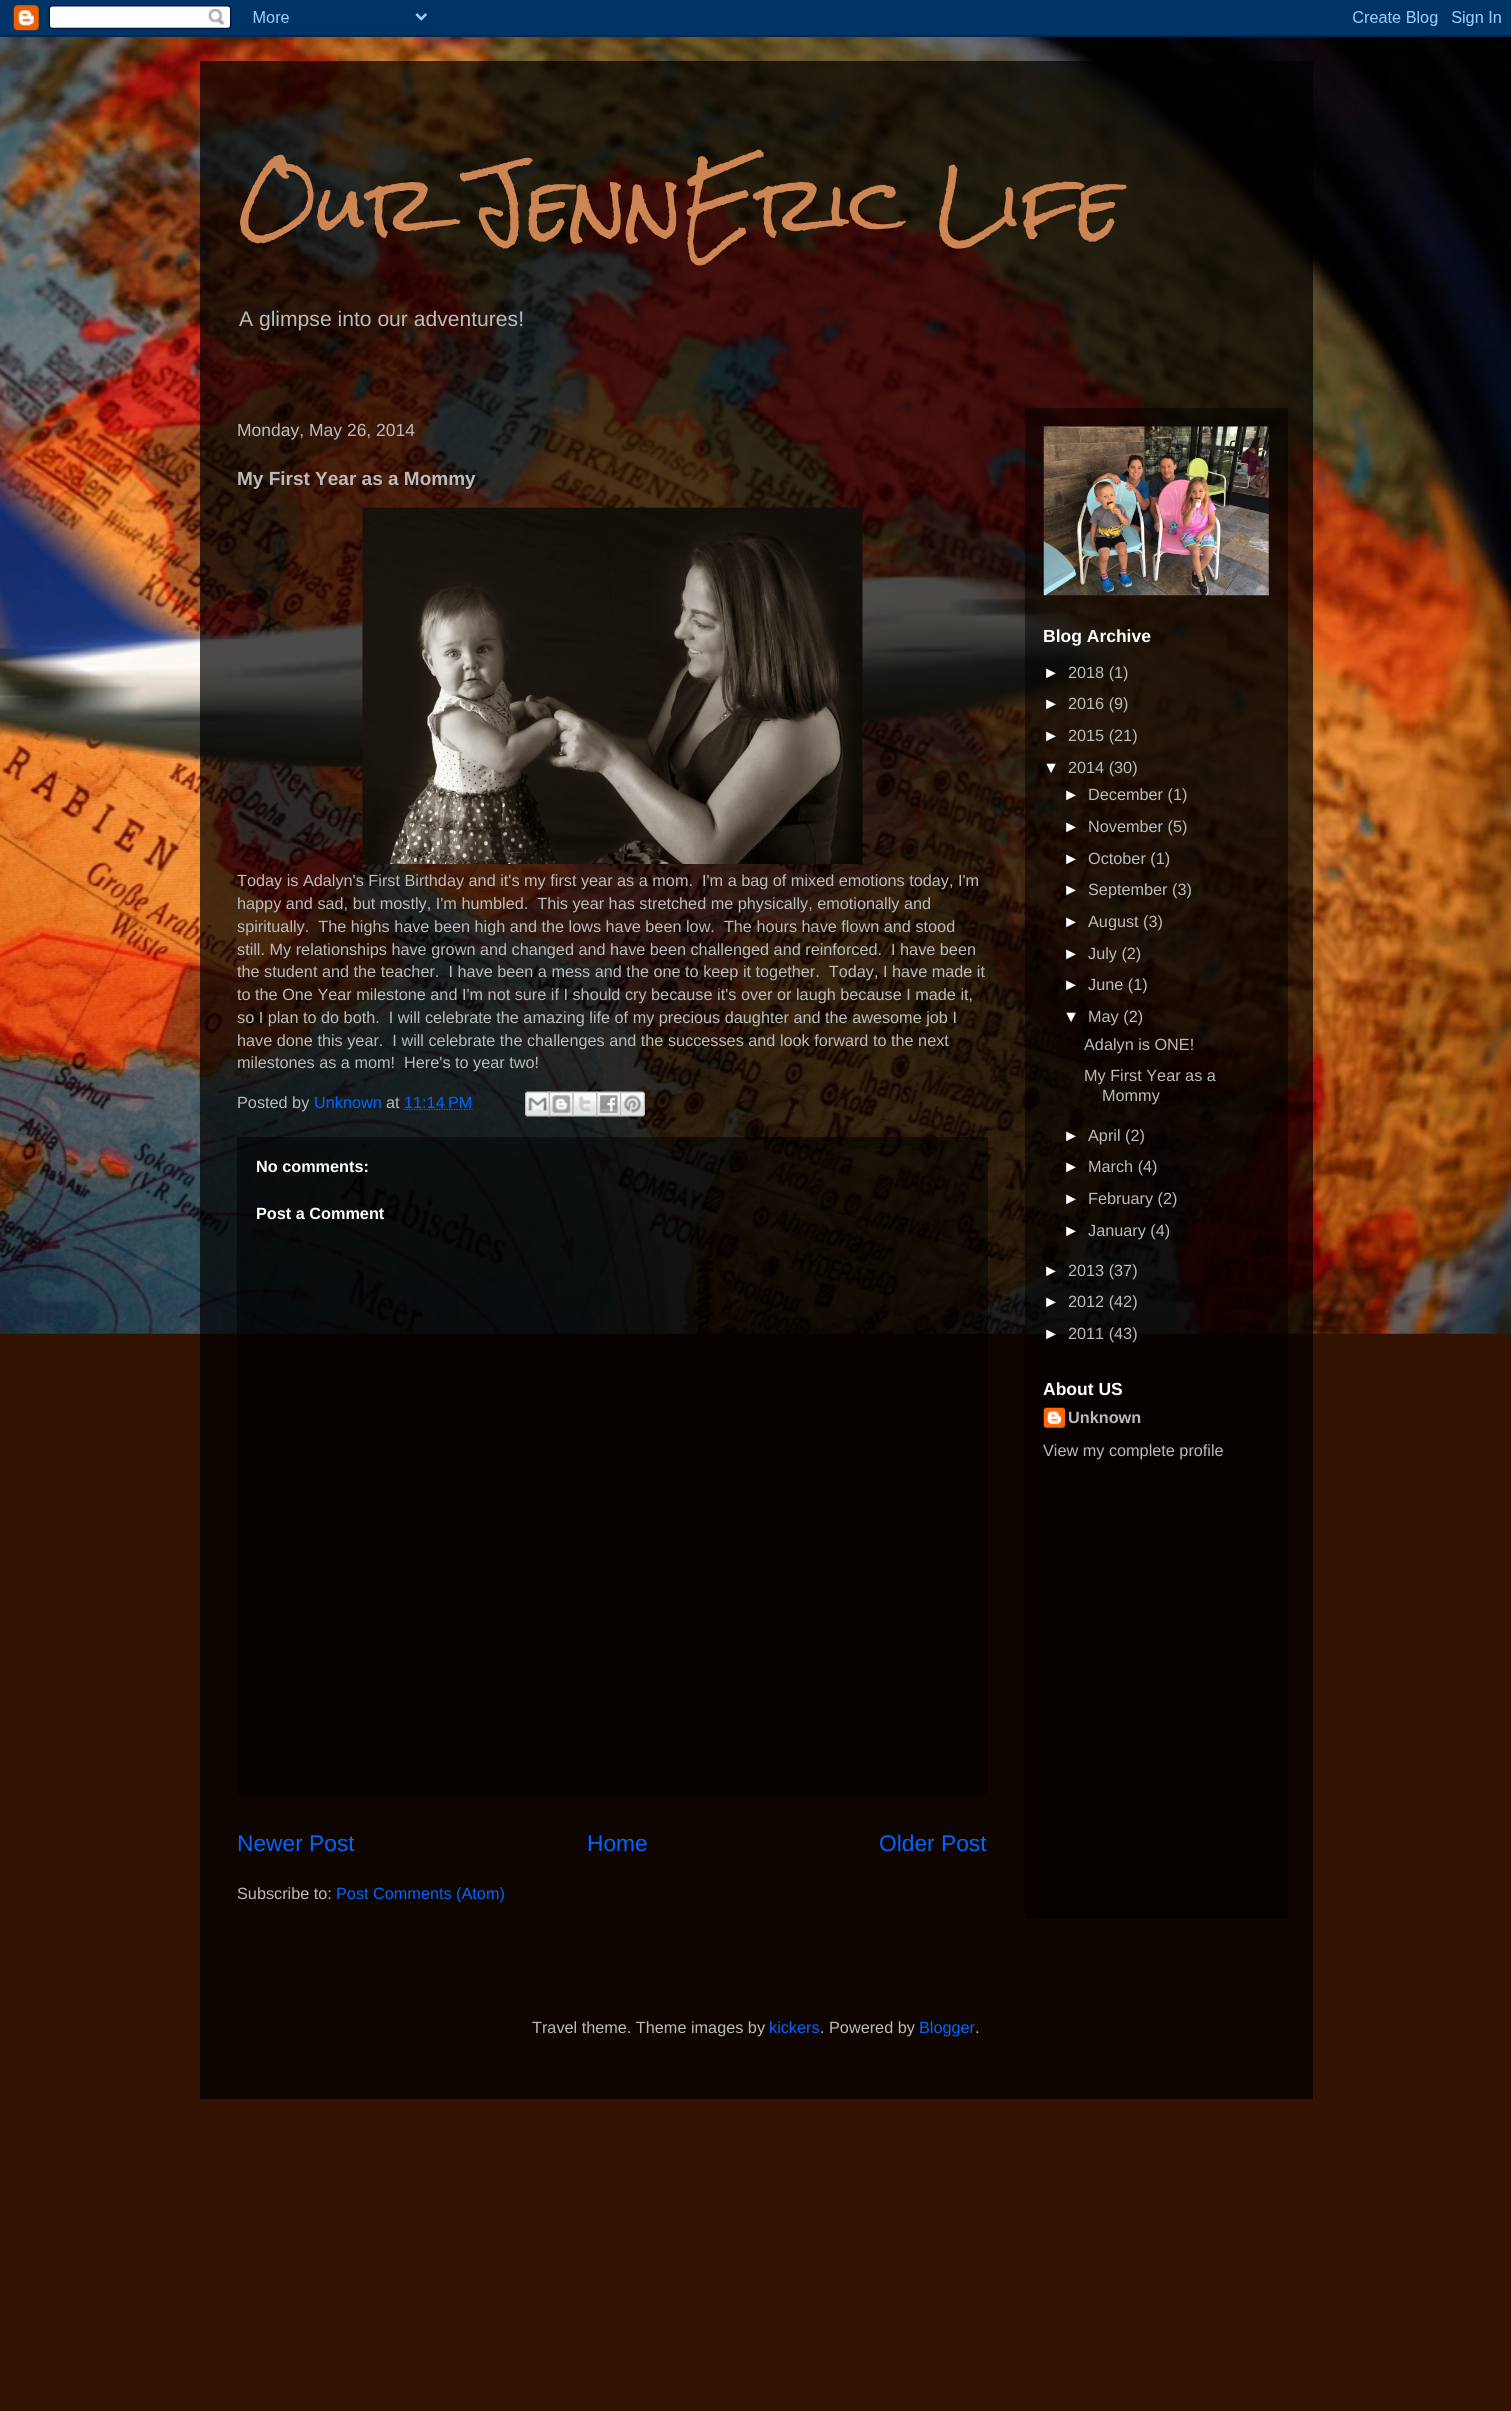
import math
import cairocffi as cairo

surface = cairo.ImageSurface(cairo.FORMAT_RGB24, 1511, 2411)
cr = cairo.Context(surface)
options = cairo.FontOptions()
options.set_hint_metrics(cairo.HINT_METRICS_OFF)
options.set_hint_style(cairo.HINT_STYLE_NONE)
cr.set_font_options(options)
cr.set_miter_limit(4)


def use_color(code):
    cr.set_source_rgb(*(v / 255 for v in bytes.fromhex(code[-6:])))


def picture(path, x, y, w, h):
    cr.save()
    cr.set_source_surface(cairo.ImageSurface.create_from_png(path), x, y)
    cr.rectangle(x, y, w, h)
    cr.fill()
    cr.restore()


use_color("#331201")
cr.paint()
picture("img1.png", 0, 35, 1511, 1299)
picture("img2.png", 0, 0, 1511, 37)
cr.set_source_rgba(0, 0, 0, 0.7)
cr.rectangle(200, 61, 1113, 2038)
cr.fill()
cr.select_font_face("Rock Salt")
cr.set_font_size(75)
use_color("#cd8553")
cr.move_to(237, 234)
cr.show_text("Our JennEric Life")
cr.select_font_face("Liberation Sans")
cr.set_font_size(21.1)
use_color("#bbbbbb")
cr.move_to(239, 326)
cr.show_text("A glimpse into our adventures!")
cr.set_source_rgba(0, 0, 0, 0.5)
cr.rectangle(1025, 408, 263, 1511)
cr.fill()
cr.set_font_size(17.5)
use_color("#bbbbbb")
cr.move_to(237, 436)
cr.show_text("Monday, May 26, 2014")
cr.select_font_face("Liberation Sans", cairo.FONT_SLANT_NORMAL, cairo.FONT_WEIGHT_BOLD)
cr.set_font_size(19)
cr.move_to(237, 485)
cr.show_text("My First Year as a Mommy")
picture("img3.png", 362, 507, 501, 357)
cr.select_font_face("Liberation Sans")
cr.set_font_size(16.25)
cr.move_to(237, 886)
cr.show_text("Today is Adalyn's First Birthday and it's my first year as a mom.  I'm a bag of mixed emotions today, I'm")
cr.move_to(237, 909)
cr.show_text("happy and sad, but mostly, I'm humbled.  This year has stretched me physically, emotionally and")
cr.move_to(237, 932)
cr.show_text("spiritually.  The highs have been high and the lows have been low.  The hours have flown and stood")
cr.move_to(237, 955)
cr.show_text("still. My relationships have grown and changed and have been challenged and reinforced.  I have been")
cr.move_to(237, 977)
cr.show_text("the student and the teacher.  I have been a mess and the one to keep it together.  Today, I have made it")
cr.move_to(237, 1000)
cr.show_text("to the One Year milestone and I'm not sure if I should cry because it's over or laugh because I made it,")
cr.move_to(237, 1023)
cr.show_text("so I plan to do both.  I will celebrate the amazing life of my precious daughter and the awesome job I")
cr.move_to(237, 1046)
cr.show_text("have done this year.  I will celebrate the challenges and the successes and look forward to the next")
cr.move_to(237, 1068)
cr.show_text("milestones as a mom!  Here's to year two!")
cr.move_to(237, 1108)
cr.show_text("Posted by")
use_color("#0065ff")
cr.move_to(314, 1108)
cr.show_text("Unknown")
use_color("#bbbbbb")
cr.move_to(386, 1108)
cr.show_text("at")
use_color("#0065ff")
cr.move_to(404, 1108)
cr.show_text("11:14 PM")
cr.new_path()
cr.move_to(404, 1109.5)
cr.line_to(472.5, 1109.5)
cr.set_line_width(1.2)
cr.set_dash([1.25, 1.25])
cr.stroke()
picture("img4.png", 525, 1091, 25, 26)
picture("img5.png", 548, 1091, 26, 26)
picture("img6.png", 572, 1091, 26, 26)
picture("img7.png", 596, 1091, 26, 26)
picture("img8.png", 620, 1091, 25, 26)
cr.set_source_rgba(0, 0, 0, 0.5)
cr.rectangle(237, 1137, 751, 659)
cr.fill()
cr.select_font_face("Liberation Sans", cairo.FONT_SLANT_NORMAL, cairo.FONT_WEIGHT_BOLD)
use_color("#ffffff")
cr.move_to(256, 1172)
cr.show_text("No comments:")
cr.move_to(256, 1219)
cr.show_text("Post a Comment")
cr.select_font_face("Liberation Sans")
cr.set_font_size(22.75)
use_color("#0065ff")
cr.move_to(237, 1851)
cr.show_text("Newer Post")
cr.move_to(587, 1851)
cr.show_text("Home")
cr.move_to(879, 1851)
cr.show_text("Older Post")
cr.set_font_size(16.25)
use_color("#bbbbbb")
cr.move_to(237, 1899)
cr.show_text("Subscribe to:")
use_color("#0065ff")
cr.move_to(336, 1899)
cr.show_text("Post Comments (Atom)")
picture("img9.png", 1043, 426, 226, 170)
cr.select_font_face("Liberation Sans", cairo.FONT_SLANT_NORMAL, cairo.FONT_WEIGHT_BOLD)
cr.set_font_size(17.5)
use_color("#ffffff")
cr.move_to(1043, 642)
cr.show_text("Blog Archive")
cr.select_font_face("Liberation Sans")
cr.set_font_size(16.25)
cr.move_to(1043, 678)
cr.show_text("►")
use_color("#bbbbbb")
cr.move_to(1068, 678)
cr.show_text("2018 (1)")
use_color("#ffffff")
cr.move_to(1043, 709)
cr.show_text("►")
use_color("#bbbbbb")
cr.move_to(1068, 709)
cr.show_text("2016 (9)")
use_color("#ffffff")
cr.move_to(1043, 741)
cr.show_text("►")
use_color("#bbbbbb")
cr.move_to(1068, 741)
cr.show_text("2015 (21)")
use_color("#ffffff")
cr.move_to(1043, 773)
cr.show_text("▼")
use_color("#bbbbbb")
cr.move_to(1068, 773)
cr.show_text("2014 (30)")
use_color("#ffffff")
cr.move_to(1063, 800)
cr.show_text("►")
use_color("#bbbbbb")
cr.move_to(1088, 800)
cr.show_text("December (1)")
use_color("#ffffff")
cr.move_to(1063, 832)
cr.show_text("►")
use_color("#bbbbbb")
cr.move_to(1088, 832)
cr.show_text("November (5)")
use_color("#ffffff")
cr.move_to(1063, 864)
cr.show_text("►")
use_color("#bbbbbb")
cr.move_to(1088, 864)
cr.show_text("October (1)")
use_color("#ffffff")
cr.move_to(1063, 895)
cr.show_text("►")
use_color("#bbbbbb")
cr.move_to(1088, 895)
cr.show_text("September (3)")
use_color("#ffffff")
cr.move_to(1063, 927)
cr.show_text("►")
use_color("#bbbbbb")
cr.move_to(1088, 927)
cr.show_text("August (3)")
use_color("#ffffff")
cr.move_to(1063, 959)
cr.show_text("►")
use_color("#bbbbbb")
cr.move_to(1088, 959)
cr.show_text("July (2)")
use_color("#ffffff")
cr.move_to(1063, 990)
cr.show_text("►")
use_color("#bbbbbb")
cr.move_to(1088, 990)
cr.show_text("June (1)")
use_color("#ffffff")
cr.move_to(1063, 1022)
cr.show_text("▼")
use_color("#bbbbbb")
cr.move_to(1088, 1022)
cr.show_text("May (2)")
cr.move_to(1084, 1050)
cr.show_text("Adalyn is ONE!")
cr.move_to(1084, 1081)
cr.show_text("My First Year as a")
cr.move_to(1102, 1101)
cr.show_text("Mommy")
use_color("#ffffff")
cr.move_to(1063, 1141)
cr.show_text("►")
use_color("#bbbbbb")
cr.move_to(1088, 1141)
cr.show_text("April (2)")
use_color("#ffffff")
cr.move_to(1063, 1172)
cr.show_text("►")
use_color("#bbbbbb")
cr.move_to(1088, 1172)
cr.show_text("March (4)")
use_color("#ffffff")
cr.move_to(1063, 1204)
cr.show_text("►")
use_color("#bbbbbb")
cr.move_to(1088, 1204)
cr.show_text("February (2)")
use_color("#ffffff")
cr.move_to(1063, 1236)
cr.show_text("►")
use_color("#bbbbbb")
cr.move_to(1088, 1236)
cr.show_text("January (4)")
use_color("#ffffff")
cr.move_to(1043, 1276)
cr.show_text("►")
use_color("#bbbbbb")
cr.move_to(1068, 1276)
cr.show_text("2013 (37)")
use_color("#ffffff")
cr.move_to(1043, 1307)
cr.show_text("►")
use_color("#bbbbbb")
cr.move_to(1068, 1307)
cr.show_text("2012 (42)")
use_color("#ffffff")
cr.move_to(1043, 1339)
cr.show_text("►")
use_color("#bbbbbb")
cr.move_to(1068, 1339)
cr.show_text("2011 (43)")
cr.select_font_face("Liberation Sans", cairo.FONT_SLANT_NORMAL, cairo.FONT_WEIGHT_BOLD)
cr.set_font_size(17.5)
use_color("#ffffff")
cr.move_to(1043, 1395)
cr.show_text("About US")
picture("img10.png", 1043, 1407, 22, 21)
cr.set_font_size(16.25)
use_color("#bbbbbb")
cr.move_to(1068, 1423)
cr.show_text("Unknown")
cr.select_font_face("Liberation Sans")
cr.move_to(1043, 1456)
cr.show_text("View my complete profile")
cr.move_to(532, 2033)
cr.show_text("Travel theme. Theme images by")
use_color("#0065ff")
cr.move_to(769, 2033)
cr.show_text("kickers")
use_color("#bbbbbb")
cr.move_to(820, 2033)
cr.show_text(". Powered by")
use_color("#0065ff")
cr.move_to(919, 2033)
cr.show_text("Blogger")
use_color("#bbbbbb")
cr.move_to(975, 2033)
cr.show_text(".")
surface.write_to_png("result.png")
